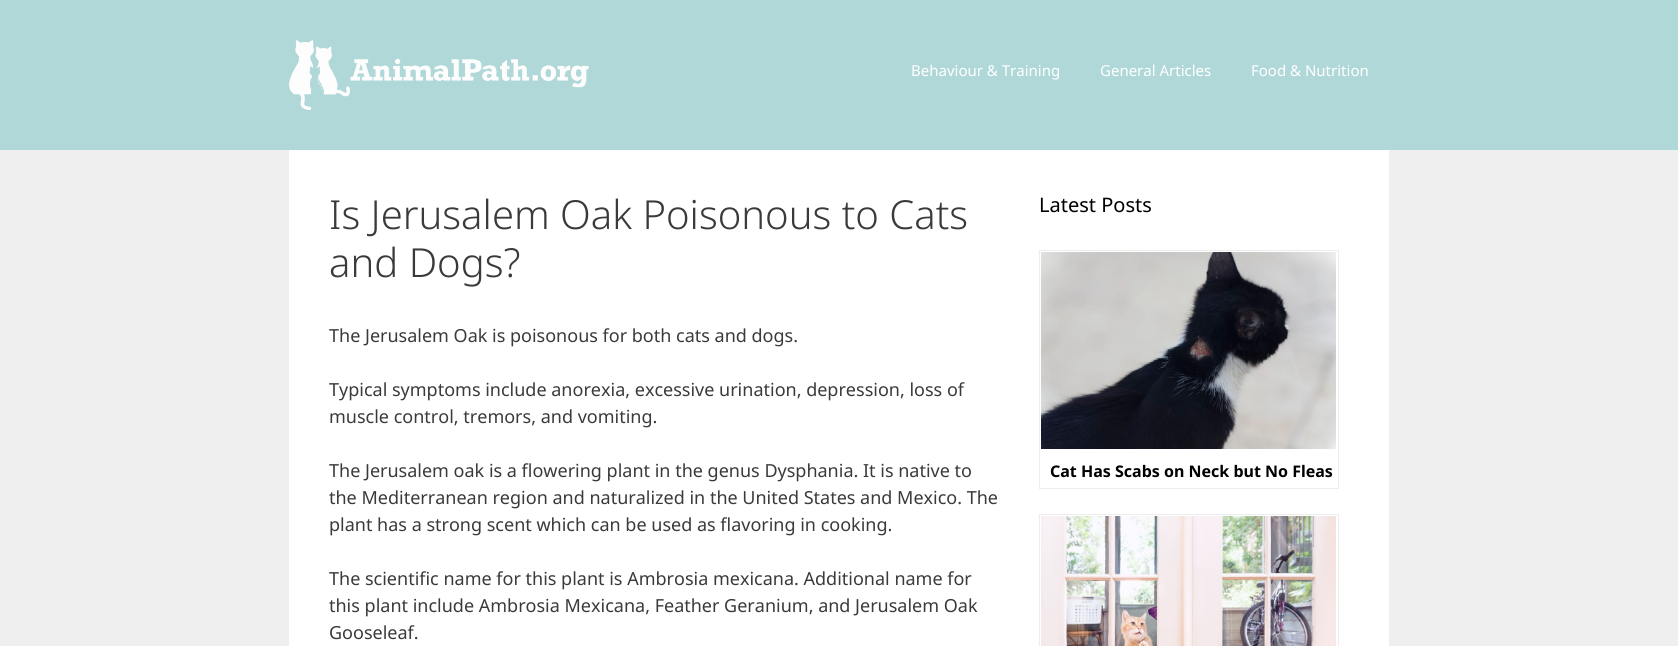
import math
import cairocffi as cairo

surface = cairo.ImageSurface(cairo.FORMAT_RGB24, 1678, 646)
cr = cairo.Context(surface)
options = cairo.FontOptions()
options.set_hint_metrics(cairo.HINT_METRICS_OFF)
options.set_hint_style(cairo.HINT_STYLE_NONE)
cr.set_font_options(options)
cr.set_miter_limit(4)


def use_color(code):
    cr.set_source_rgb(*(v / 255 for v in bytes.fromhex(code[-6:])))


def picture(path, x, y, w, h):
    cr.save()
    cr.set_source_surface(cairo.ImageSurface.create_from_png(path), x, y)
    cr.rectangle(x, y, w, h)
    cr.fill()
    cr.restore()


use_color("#efefef")
cr.paint()
use_color("#b1d8d8")
cr.rectangle(0, 0, 1678, 150)
cr.fill()
picture("img1.png", 289, 40, 300, 70)
cr.select_font_face("Noto Sans")
cr.set_font_size(15)
use_color("#ffffff")
cr.move_to(911, 76)
cr.show_text("Behaviour & Training")
cr.move_to(1100, 76)
cr.show_text("General Articles")
cr.move_to(1251, 76)
cr.show_text("Food & Nutrition")
cr.rectangle(289, 150, 1100, 496)
cr.fill()
cr.select_font_face("Noto Sans Light")
cr.set_font_size(40)
use_color("#3a3a3a")
cr.move_to(329, 229)
cr.show_text("Is Jerusalem Oak Poisonous to Cats")
cr.move_to(329, 277)
cr.show_text("and Dogs?")
cr.select_font_face("Noto Sans")
cr.set_font_size(18)
cr.move_to(329, 342)
cr.show_text("The Jerusalem Oak is poisonous for both cats and dogs.")
cr.move_to(329, 396)
cr.show_text("Typical symptoms include anorexia, excessive urination, depression, loss of")
cr.move_to(329, 423)
cr.show_text("muscle control, tremors, and vomiting.")
cr.move_to(329, 477)
cr.show_text("The Jerusalem oak is a flowering plant in the genus Dysphania. It is native to")
cr.move_to(329, 504)
cr.show_text("the Mediterranean region and naturalized in the United States and Mexico. The")
cr.move_to(329, 531)
cr.show_text("plant has a strong scent which can be used as flavoring in cooking.")
cr.move_to(329, 585)
cr.show_text("The scientific name for this plant is Ambrosia mexicana. Additional name for")
cr.move_to(329, 612)
cr.show_text("this plant include Ambrosia Mexicana, Feather Geranium, and Jerusalem Oak")
cr.move_to(329, 639)
cr.show_text("Gooseleaf.")
cr.set_font_size(20)
use_color("#000000")
cr.move_to(1039, 212)
cr.show_text("Latest Posts")
cr.rectangle(1039.5, 250.5, 299, 238)
use_color("#ededed")
cr.set_line_width(1)
cr.stroke()
picture("img2.png", 1041, 252, 295, 197)
cr.select_font_face("Noto Sans", cairo.FONT_SLANT_NORMAL, cairo.FONT_WEIGHT_BOLD)
cr.set_font_size(16)
use_color("#000000")
cr.move_to(1050, 477)
cr.show_text("Cat Has Scabs on Neck but No Fleas")
cr.rectangle(1039.5, 514.5, 299, 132)
use_color("#ededed")
cr.stroke()
picture("img3.png", 1041, 516, 295, 130)
surface.write_to_png("result.png")
